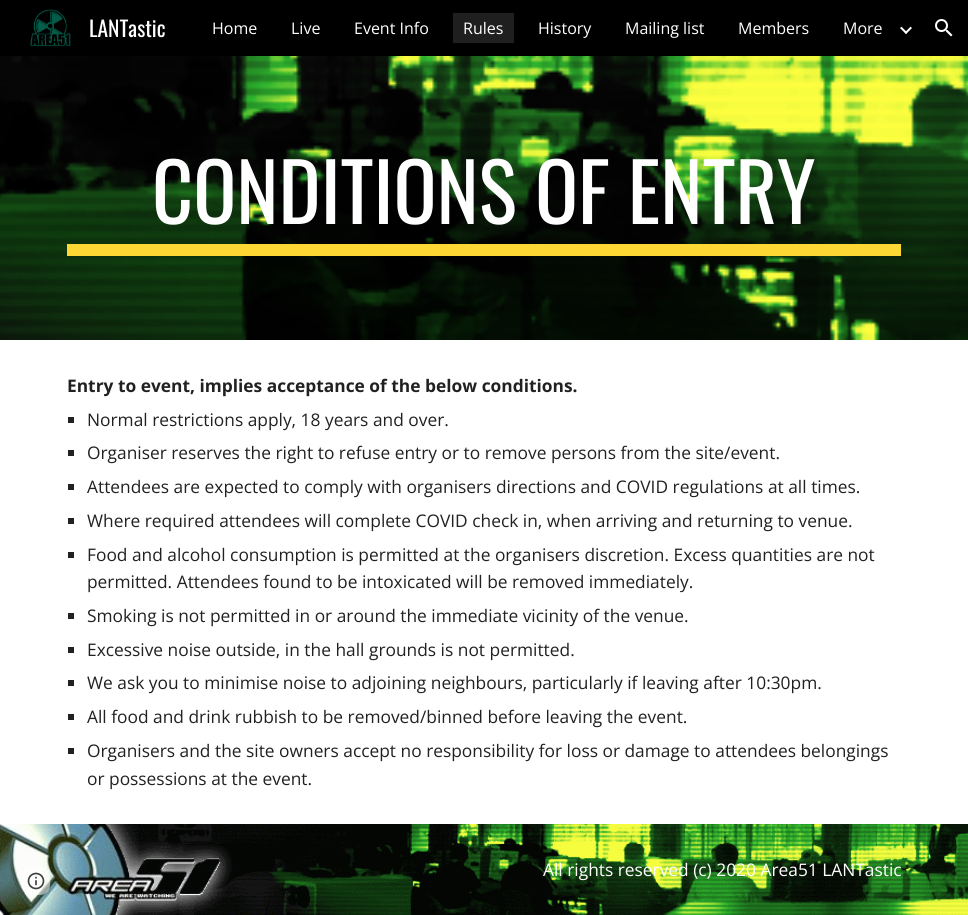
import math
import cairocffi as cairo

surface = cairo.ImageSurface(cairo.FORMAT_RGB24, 968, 915)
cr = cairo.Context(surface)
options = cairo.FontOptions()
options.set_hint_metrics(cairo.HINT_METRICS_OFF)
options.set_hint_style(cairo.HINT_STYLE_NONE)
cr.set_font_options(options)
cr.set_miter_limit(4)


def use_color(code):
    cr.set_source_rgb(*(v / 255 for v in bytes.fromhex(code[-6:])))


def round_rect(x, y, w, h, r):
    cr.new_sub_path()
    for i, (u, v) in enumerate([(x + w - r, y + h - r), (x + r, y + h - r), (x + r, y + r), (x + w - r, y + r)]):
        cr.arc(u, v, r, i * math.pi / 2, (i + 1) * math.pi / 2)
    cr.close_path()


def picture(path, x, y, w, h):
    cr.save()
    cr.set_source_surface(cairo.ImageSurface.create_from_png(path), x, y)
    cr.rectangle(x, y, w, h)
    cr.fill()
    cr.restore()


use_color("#ffffff")
cr.paint()
use_color("#000000")
cr.rectangle(0, 0, 968, 56)
cr.fill()
picture("img1.png", 30, 9, 41, 38)
cr.select_font_face("Oswald")
cr.set_font_size(21.5)
use_color("#ffffff")
cr.move_to(89, 37)
cr.show_text("LANTastic")
cr.select_font_face("Open Sans")
cr.set_font_size(16)
cr.move_to(212, 34)
cr.show_text("Home")
cr.move_to(291, 34)
cr.show_text("Live")
cr.move_to(354, 34)
cr.show_text("Event Info")
use_color("#1f1f1f")
cr.rectangle(453, 13, 61, 30)
cr.fill()
use_color("#ffffff")
cr.move_to(463, 34)
cr.show_text("Rules")
cr.move_to(538, 34)
cr.show_text("History")
cr.move_to(625, 34)
cr.show_text("Mailing list")
cr.move_to(738, 34)
cr.show_text("Members")
cr.move_to(843, 34)
cr.show_text("More")
picture("img2.png", 900, 26, 12, 8)
picture("img3.png", 935, 19, 18, 18)
picture("img4.png", 0, 56, 968, 284)
cr.select_font_face("Oswald")
cr.set_font_size(80)
cr.move_to(152, 224)
cr.show_text("CONDITIONS OF ENTRY")
use_color("#fdd835")
cr.rectangle(67, 244, 834, 12)
cr.fill()
cr.select_font_face("Open Sans", cairo.FONT_SLANT_NORMAL, cairo.FONT_WEIGHT_BOLD)
cr.set_font_size(17.35)
use_color("#212121")
cr.move_to(67, 392)
cr.show_text("Entry to event, implies acceptance of the below conditions.")
cr.rectangle(68, 417, 6, 6)
cr.fill()
cr.select_font_face("Open Sans")
cr.move_to(87, 426)
cr.show_text("Normal restrictions apply, 18 years and over.")
cr.rectangle(68, 450, 6, 6)
cr.fill()
cr.move_to(87, 459)
cr.show_text("Organiser reserves the right to refuse entry or to remove persons from the site/event.")
cr.rectangle(68, 484, 6, 6)
cr.fill()
cr.move_to(87, 493)
cr.show_text("Attendees are expected to comply with organisers directions and COVID regulations at all times.")
cr.rectangle(68, 518, 6, 6)
cr.fill()
cr.move_to(87, 527)
cr.show_text("Where required attendees will complete COVID check in, when arriving and returning to venue.")
cr.rectangle(68, 552, 6, 6)
cr.fill()
cr.move_to(87, 561)
cr.show_text("Food and alcohol consumption is permitted at the organisers discretion. Excess quantities are not")
cr.move_to(87, 588)
cr.show_text("permitted. Attendees found to be intoxicated will be removed immediately.")
cr.rectangle(68, 613, 6, 6)
cr.fill()
cr.move_to(87, 622)
cr.show_text("Smoking is not permitted in or around the immediate vicinity of the venue.")
cr.rectangle(68, 647, 6, 6)
cr.fill()
cr.move_to(87, 656)
cr.show_text("Excessive noise outside, in the hall grounds is not permitted.")
cr.rectangle(68, 680, 6, 6)
cr.fill()
cr.move_to(87, 689)
cr.show_text("We ask you to minimise noise to adjoining neighbours, particularly if leaving after 10:30pm.")
cr.rectangle(68, 714, 6, 6)
cr.fill()
cr.move_to(87, 723)
cr.show_text("All food and drink rubbish to be removed/binned before leaving the event.")
cr.rectangle(68, 748, 6, 6)
cr.fill()
cr.move_to(87, 757)
cr.show_text("Organisers and the site owners accept no responsibility for loss or damage to attendees belongings")
cr.move_to(87, 785)
cr.show_text("or possessions at the event.")
picture("img6.png", 0, 824, 968, 91)
cr.set_source_rgba(1, 1, 1, 0.5)
round_rect(22, 867, 28, 28, 10)
cr.fill()
picture("img5.png", 27, 872, 18, 18)
use_color("#ffffff")
cr.move_to(543, 876)
cr.show_text("All rights reserved (c) 2020 Area51 LANTastic")
surface.write_to_png("result.png")
